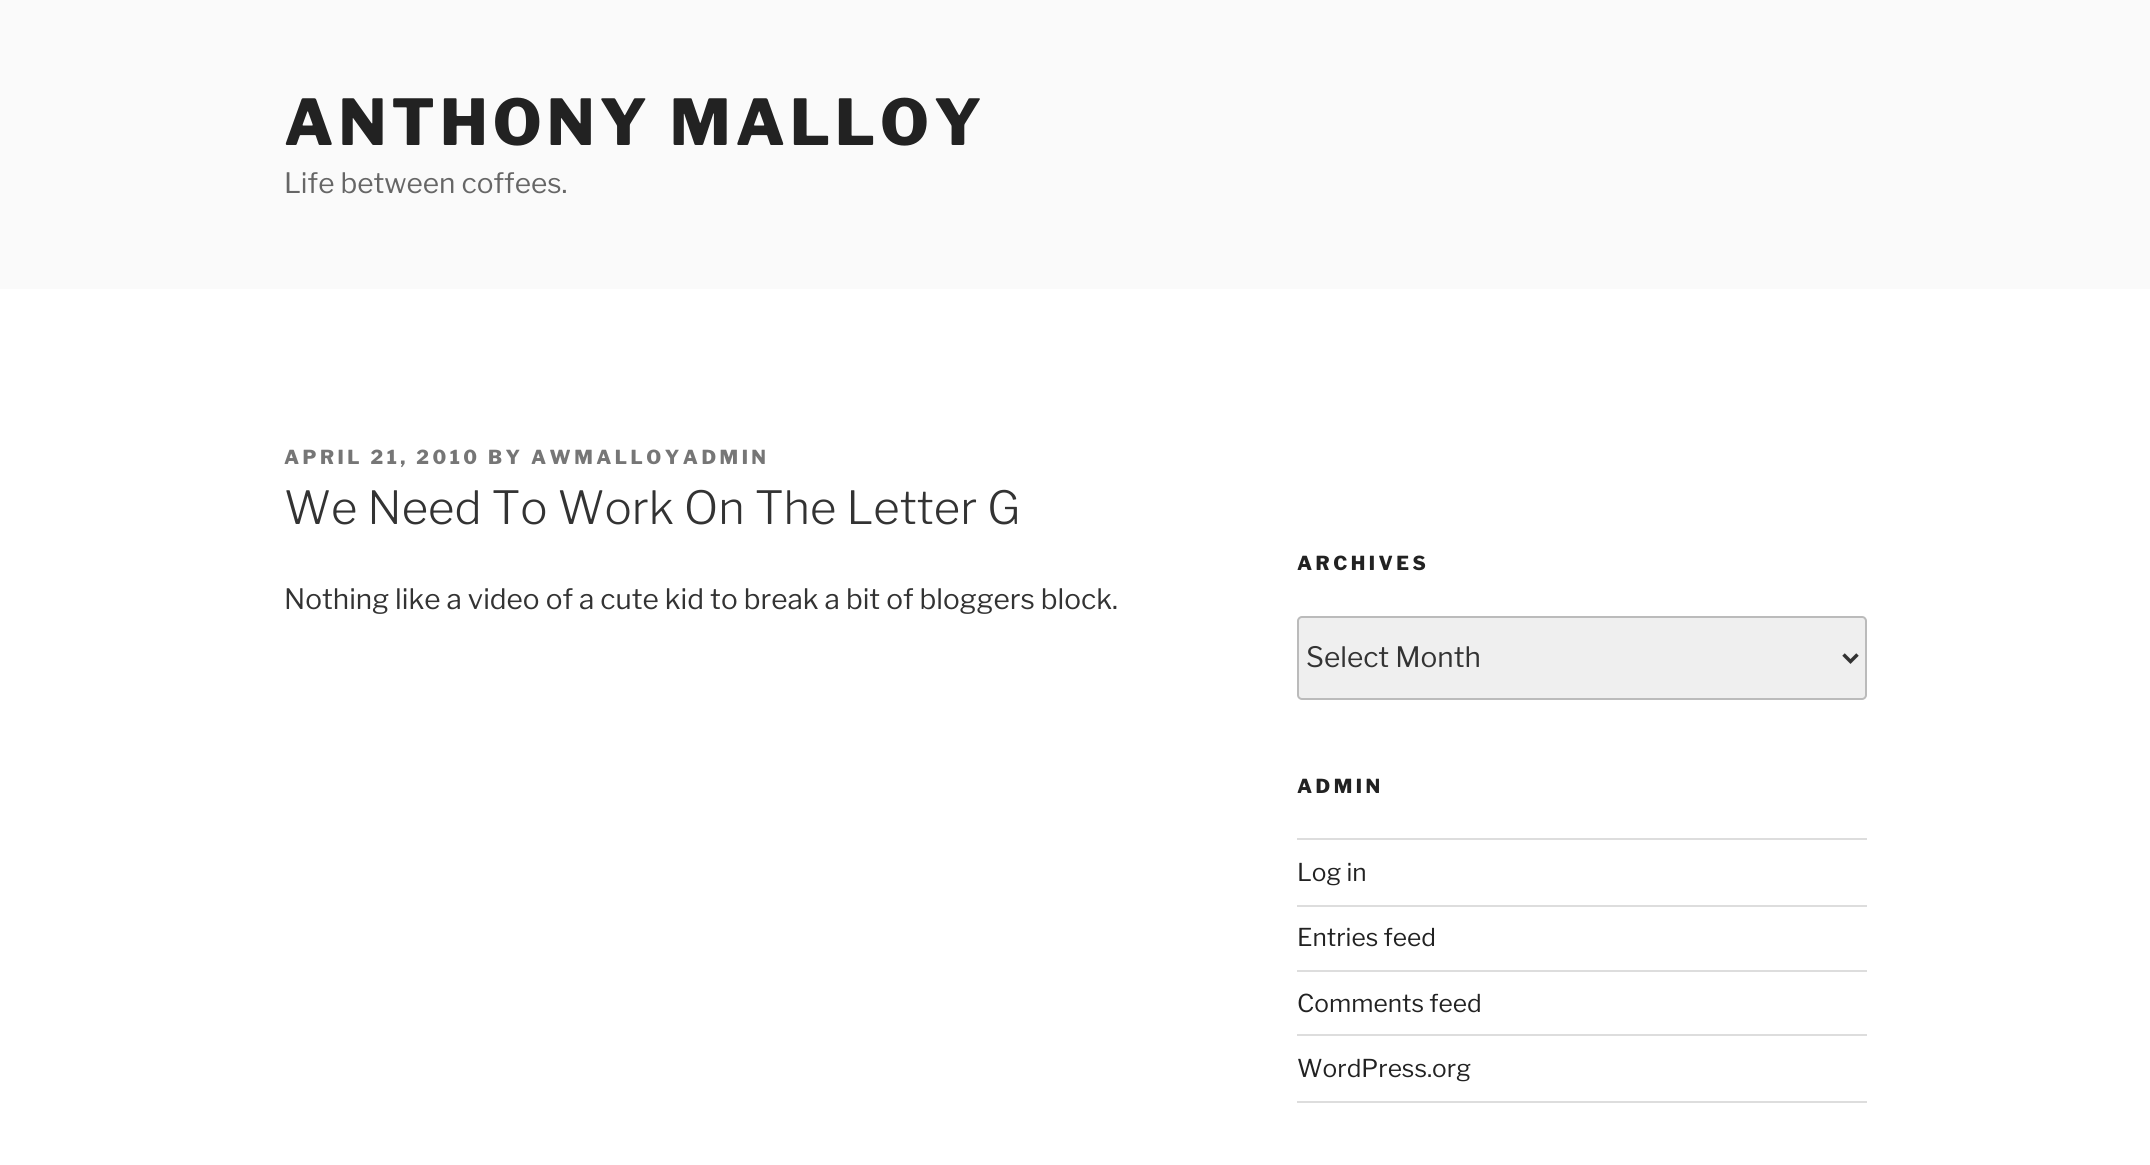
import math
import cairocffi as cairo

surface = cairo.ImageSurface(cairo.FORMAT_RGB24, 2150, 1165)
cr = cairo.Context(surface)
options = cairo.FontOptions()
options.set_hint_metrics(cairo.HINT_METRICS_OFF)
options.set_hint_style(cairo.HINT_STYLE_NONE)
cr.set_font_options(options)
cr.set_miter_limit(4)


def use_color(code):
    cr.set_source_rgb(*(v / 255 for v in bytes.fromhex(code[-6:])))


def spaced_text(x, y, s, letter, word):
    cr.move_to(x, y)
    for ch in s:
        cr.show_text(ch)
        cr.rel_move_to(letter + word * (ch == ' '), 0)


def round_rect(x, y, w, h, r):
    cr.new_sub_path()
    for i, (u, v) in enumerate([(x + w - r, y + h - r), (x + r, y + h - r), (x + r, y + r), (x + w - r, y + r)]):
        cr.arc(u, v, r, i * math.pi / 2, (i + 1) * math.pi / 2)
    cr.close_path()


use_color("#ffffff")
cr.paint()
use_color("#fafafa")
cr.rectangle(0, 0, 2150, 289)
cr.fill()
cr.select_font_face("Libre Franklin Thin")
cr.set_font_size(63)
use_color("#222222")
spaced_text(284, 145, "ANTHONY MALLOY", 5, 0)
cr.select_font_face("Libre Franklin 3 Thin")
cr.set_font_size(28)
use_color("#666666")
cr.move_to(284, 193)
cr.show_text("Life between coffees.")
cr.select_font_face("Libre Franklin Thin")
cr.set_font_size(19.25)
use_color("#767676")
spaced_text(284, 464, "APRIL 21, 2010 BY AWMALLOYADMIN", 3.5, 0)
cr.select_font_face("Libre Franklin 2 Thin")
cr.set_font_size(45.5)
use_color("#333333")
cr.move_to(284, 524)
cr.show_text("We Need To Work On The Letter G")
cr.select_font_face("Libre Franklin 3 Thin")
cr.set_font_size(28)
cr.move_to(284, 609)
cr.show_text("Nothing like a video of a cute kid to break a bit of bloggers block.")
cr.select_font_face("Libre Franklin Thin")
cr.set_font_size(19.25)
use_color("#222222")
spaced_text(1297, 570, "ARCHIVES", 3.5, 0)
use_color("#efefef")
round_rect(1298, 617, 568, 82, 4)
cr.fill_preserve()
use_color("#bbbbbb")
cr.stroke()
cr.new_path()
cr.move_to(1843.5, 654.5)
cr.line_to(1850.5, 661.5)
cr.line_to(1857.5, 654.5)
use_color("#333333")
cr.set_line_width(3.5)
cr.stroke()
cr.select_font_face("Libre Franklin 3 Thin")
cr.set_font_size(28)
cr.move_to(1306, 667)
cr.show_text("Select Month")
cr.select_font_face("Libre Franklin Thin")
cr.set_font_size(19.25)
use_color("#222222")
spaced_text(1297, 793, "ADMIN", 3.5, 0)
use_color("#dddddd")
cr.rectangle(1297, 838, 570, 2)
cr.fill()
cr.rectangle(1297, 905, 570, 2)
cr.fill()
cr.select_font_face("Libre Franklin 3 Thin")
cr.set_font_size(24.5)
use_color("#222222")
cr.move_to(1297, 881)
cr.show_text("Log in")
use_color("#dddddd")
cr.rectangle(1297, 970, 570, 2)
cr.fill()
use_color("#222222")
cr.move_to(1297, 946)
cr.show_text("Entries feed")
use_color("#dddddd")
cr.rectangle(1297, 1034, 570, 2)
cr.fill()
use_color("#222222")
cr.move_to(1297, 1012)
cr.show_text("Comments feed")
use_color("#dddddd")
cr.rectangle(1297, 1101, 570, 2)
cr.fill()
use_color("#222222")
cr.move_to(1297, 1077)
cr.show_text("WordPress.org")
surface.write_to_png("result.png")
